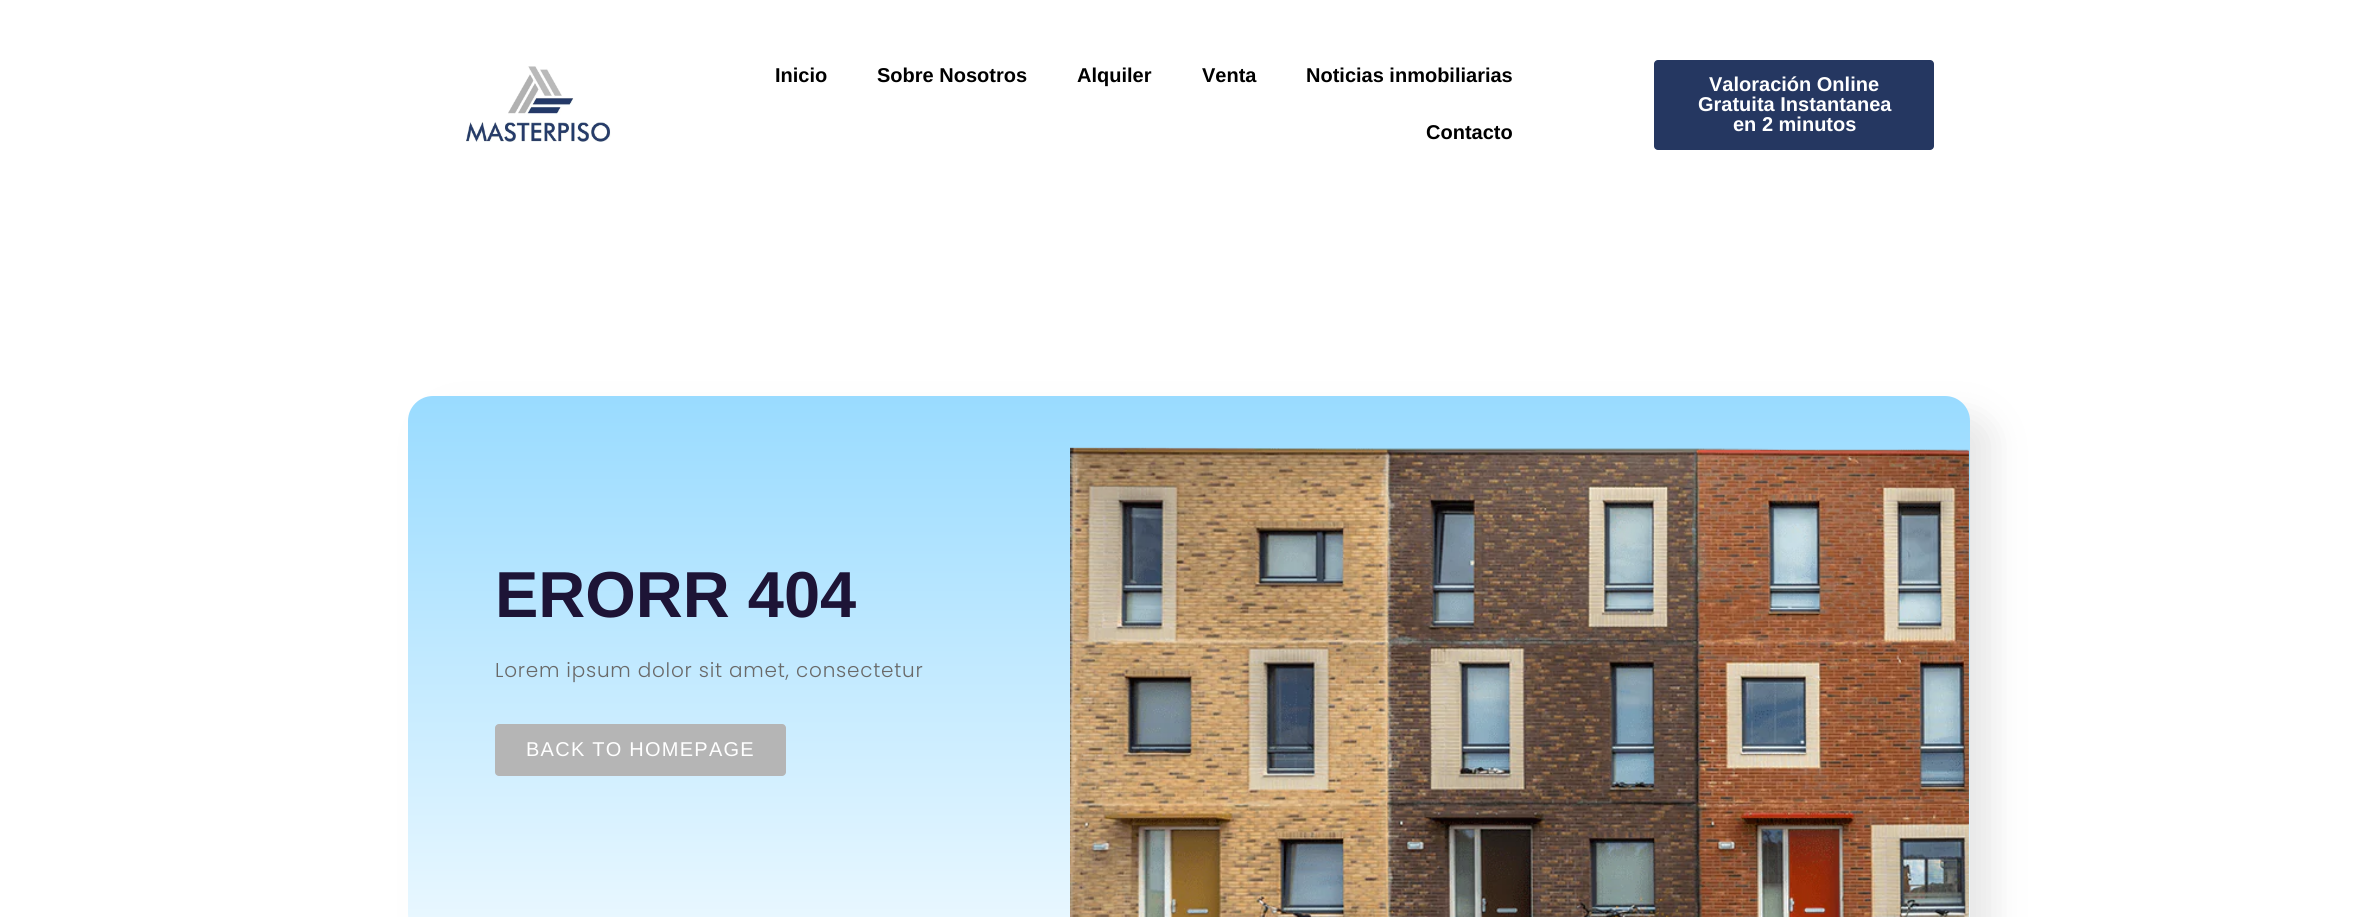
import math
import cairocffi as cairo

surface = cairo.ImageSurface(cairo.FORMAT_RGB24, 2377, 917)
cr = cairo.Context(surface)
options = cairo.FontOptions()
options.set_hint_metrics(cairo.HINT_METRICS_OFF)
options.set_hint_style(cairo.HINT_STYLE_NONE)
cr.set_font_options(options)
cr.set_miter_limit(4)


def use_color(code):
    cr.set_source_rgb(*(v / 255 for v in bytes.fromhex(code[-6:])))


def spaced_text(x, y, s, letter, word):
    cr.move_to(x, y)
    for ch in s:
        cr.show_text(ch)
        cr.rel_move_to(letter + word * (ch == ' '), 0)


def round_rect(x, y, w, h, r):
    cr.new_sub_path()
    for i, (u, v) in enumerate([(x + w - r, y + h - r), (x + r, y + h - r), (x + r, y + r), (x + w - r, y + r)]):
        cr.arc(u, v, r, i * math.pi / 2, (i + 1) * math.pi / 2)
    cr.close_path()


def shadow(x, y, w, h, r, blur, alpha):
    cr.push_group_with_content(cairo.CONTENT_ALPHA)
    cr.set_operator(cairo.OPERATOR_SOURCE)
    for i in range(15, -16, -2):
        e = blur * i / 6
        if min(w, h) + 2 * e > 0:
            cr.set_source_rgba(0, 0, 0, alpha * math.erfc((i - 1) / 8.5) / 2)
            round_rect(x - e, y - e, w + 2 * e, h + 2 * e, max(0, min(r + e + blur * .6, min(w, h) / 2 + e)))
            cr.fill()
    cr.mask(cr.pop_group())


def picture(path, x, y, w, h):
    cr.save()
    cr.set_source_surface(cairo.ImageSurface.create_from_png(path), x, y)
    cr.rectangle(x, y, w, h)
    cr.fill()
    cr.restore()


use_color("#ffffff")
cr.paint()
picture("img1.png", 466, 66, 145, 76)
cr.select_font_face("Liberation Sans", cairo.FONT_SLANT_NORMAL, cairo.FONT_WEIGHT_BOLD)
cr.set_font_size(20)
use_color("#000000")
cr.move_to(775, 82)
cr.show_text("Inicio")
cr.move_to(877, 82)
cr.show_text("Sobre Nosotros")
cr.move_to(1077, 82)
cr.show_text("Alquiler")
cr.move_to(1202, 82)
cr.show_text("Venta")
cr.move_to(1306, 82)
cr.show_text("Noticias inmobiliarias")
cr.move_to(1426, 139)
cr.show_text("Contacto")
use_color("#253761")
round_rect(1654, 60, 280, 90, 4)
cr.fill()
use_color("#ffffff")
cr.move_to(1709, 91)
cr.show_text("Valoración Online")
cr.move_to(1698, 111)
cr.show_text("Gratuita Instantanea")
cr.move_to(1733, 131)
cr.show_text("en 2 minutos")
use_color("#757575")
shadow(431, 415, 1563, 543, 25, 15.5, 0.17)
gradient = cairo.LinearGradient(1189, 396, 1189, 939)
gradient.add_color_stop_rgba(0, 0.6, 0.859, 1, 1)
gradient.add_color_stop_rgba(1, 0.922, 0.973, 1, 1)
cr.set_source(gradient)
round_rect(408, 396, 1562, 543, 25)
cr.fill()
cr.set_font_size(65)
use_color("#1d1436")
cr.move_to(495, 617)
cr.show_text("ERORR 404")
cr.select_font_face("Poppins Light")
cr.set_font_size(20)
use_color("#696969")
spaced_text(495, 677, "Lorem ipsum dolor sit amet, consectetur", 0.75, 0)
use_color("#b5b5b5")
round_rect(495, 724, 291, 52, 4)
cr.fill()
cr.select_font_face("Liberation Sans")
use_color("#ffffff")
spaced_text(526, 756, "BACK TO HOMEPAGE", 1.25, 0)
picture("img2.png", 1070, 447, 899, 470)
picture("img3.png", 1070, 447, 899, 470)
surface.write_to_png("result.png")
